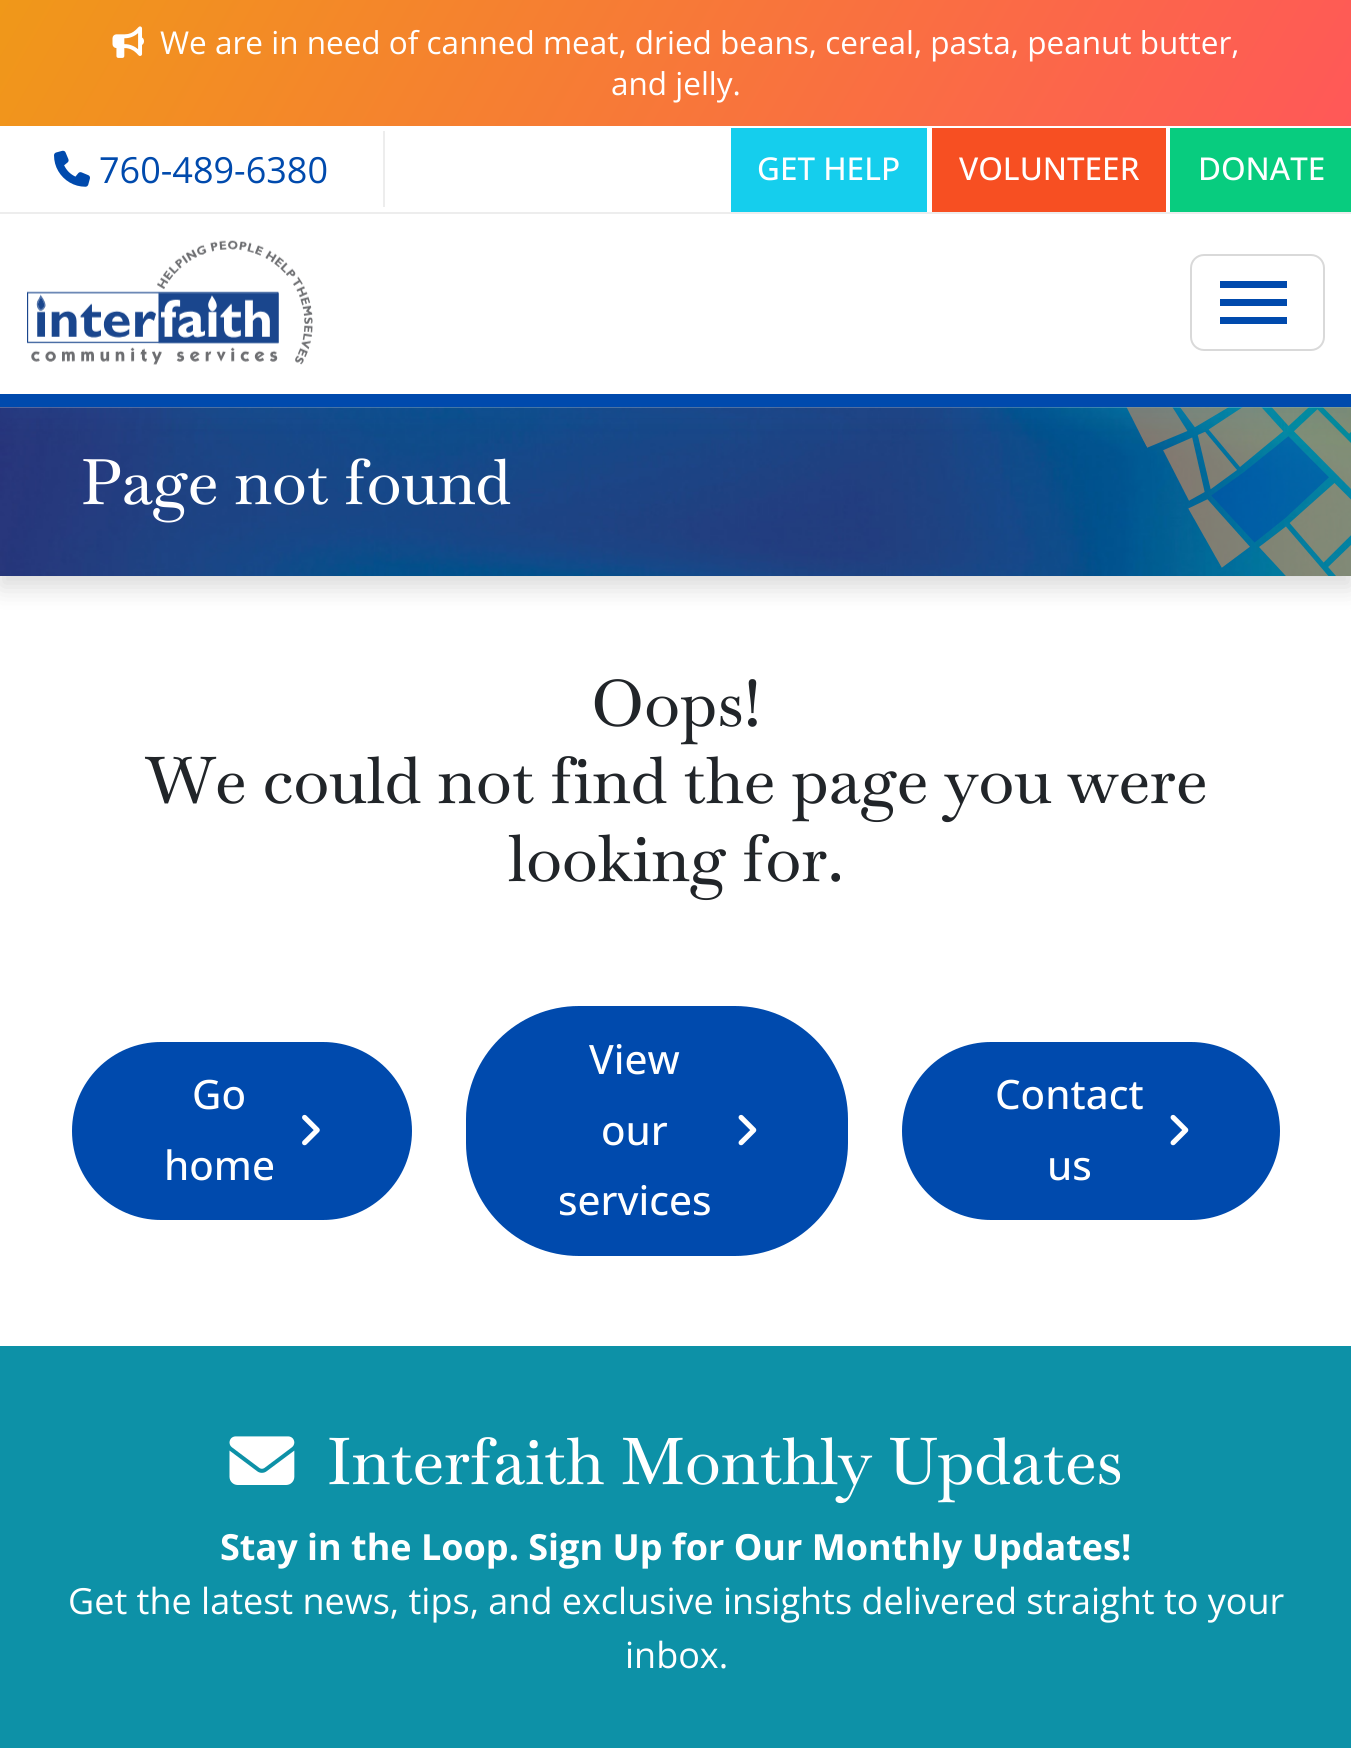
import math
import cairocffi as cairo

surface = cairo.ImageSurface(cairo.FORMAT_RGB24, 1351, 1748)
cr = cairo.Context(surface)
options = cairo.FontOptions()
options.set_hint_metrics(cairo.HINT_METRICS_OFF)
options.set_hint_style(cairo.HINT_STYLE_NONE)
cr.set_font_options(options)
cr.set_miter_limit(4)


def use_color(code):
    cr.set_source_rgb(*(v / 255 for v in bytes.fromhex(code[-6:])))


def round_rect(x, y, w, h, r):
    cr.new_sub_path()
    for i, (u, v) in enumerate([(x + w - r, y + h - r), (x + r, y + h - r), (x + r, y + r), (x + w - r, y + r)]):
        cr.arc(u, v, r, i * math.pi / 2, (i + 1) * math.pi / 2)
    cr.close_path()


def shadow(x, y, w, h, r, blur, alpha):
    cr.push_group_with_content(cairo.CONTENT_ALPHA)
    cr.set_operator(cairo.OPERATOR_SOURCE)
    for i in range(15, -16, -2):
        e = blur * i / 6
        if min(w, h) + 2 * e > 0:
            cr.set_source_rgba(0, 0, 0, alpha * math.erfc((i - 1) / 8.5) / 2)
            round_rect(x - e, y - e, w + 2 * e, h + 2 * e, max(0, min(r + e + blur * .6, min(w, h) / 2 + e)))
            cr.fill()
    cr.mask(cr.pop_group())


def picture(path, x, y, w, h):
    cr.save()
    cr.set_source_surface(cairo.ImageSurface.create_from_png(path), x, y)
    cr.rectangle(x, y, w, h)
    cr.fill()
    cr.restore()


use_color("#ffffff")
cr.paint()
use_color("#000000")
shadow(0, 419, 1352, 168, 0, 12.5, 0.15)
picture("img4.png", 0, 407, 1351, 169)
picture("img5.png", 1126, 407, 225, 169)
use_color("#0c69b8")
shadow(-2, 9, 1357, 412, 0, 16, 0.1)
use_color("#ffffff")
cr.rectangle(0, 126, 1351, 268)
cr.fill()
use_color("#004aad")
cr.rectangle(0, 394, 1351, 13)
cr.fill()
gradient = cairo.LinearGradient(1210, 372, 142, -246)
gradient.add_color_stop_rgba(0, 1, 0.345, 0.345, 1)
gradient.add_color_stop_rgba(1, 0.941, 0.596, 0.098, 1)
cr.set_source(gradient)
cr.rectangle(0, 0, 1351, 126)
cr.fill()
picture("img1.png", 112, 26, 32, 32)
cr.select_font_face("Open Sans")
cr.set_font_size(31.5)
use_color("#ffffff")
cr.move_to(160, 54)
cr.show_text("We are in need of canned meat, dried beans, cereal, pasta, peanut butter,")
cr.move_to(611, 95)
cr.show_text("and jelly.")
use_color("#ededed")
cr.rectangle(0, 212, 1351, 2)
cr.fill()
cr.rectangle(383, 131, 2, 76)
cr.fill()
picture("img2.png", 54, 150, 36, 37)
cr.set_font_size(36)
use_color("#004aad")
cr.move_to(99, 183)
cr.show_text("760-489-6380")
use_color("#15ceed")
cr.rectangle(731, 128, 196, 84)
cr.fill()
cr.select_font_face("Open Sans Medium")
cr.set_font_size(31.5)
use_color("#ffffff")
cr.move_to(757, 180)
cr.show_text("GET HELP")
use_color("#f74f22")
cr.rectangle(932, 128, 234, 84)
cr.fill()
use_color("#ffffff")
cr.move_to(959, 180)
cr.show_text("VOLUNTEER")
use_color("#08cc7f")
cr.rectangle(1170, 128, 181, 84)
cr.fill()
use_color("#ffffff")
cr.move_to(1198, 180)
cr.show_text("DONATE")
picture("img3.png", 27, 240, 286, 125)
round_rect(1191, 255, 133, 95, 13)
use_color("#d9d9d9")
cr.stroke()
use_color("#004aad")
cr.rectangle(1220, 281, 67, 7)
cr.fill()
cr.rectangle(1220, 299, 67, 7)
cr.fill()
cr.rectangle(1220, 317, 67, 7)
cr.fill()
cr.select_font_face("Baskervville Medium")
cr.set_font_size(63)
use_color("#ffffff")
cr.move_to(81, 504)
cr.show_text("Page not found")
cr.set_font_size(64.8)
use_color("#212529")
cr.move_to(591, 726)
cr.show_text("Oops!")
cr.move_to(146, 803)
cr.show_text("We could not find the page you were")
cr.move_to(508, 881)
cr.show_text("looking for.")
use_color("#004aad")
round_rect(73, 1043, 338, 176, 88)
cr.fill_preserve()
cr.stroke()
cr.select_font_face("Open Sans Medium")
cr.set_font_size(40.5)
use_color("#ffffff")
cr.move_to(192, 1109)
cr.show_text("Go")
picture("img6.png", 302, 1114, 18, 32)
cr.move_to(164, 1180)
cr.show_text("home")
use_color("#004aad")
round_rect(467, 1007, 380, 248, 112)
cr.fill_preserve()
cr.stroke()
use_color("#ffffff")
cr.move_to(589, 1074)
cr.show_text("View")
cr.move_to(601, 1145)
cr.show_text("our")
picture("img7.png", 738, 1114, 19, 32)
cr.move_to(558, 1215)
cr.show_text("services")
use_color("#004aad")
round_rect(903, 1043, 376, 176, 88)
cr.fill_preserve()
cr.stroke()
use_color("#ffffff")
cr.move_to(995, 1109)
cr.show_text("Contact")
picture("img7.png", 1170, 1114, 19, 32)
cr.move_to(1047, 1180)
cr.show_text("us")
use_color("#0d91a7")
cr.rectangle(0, 1346, 1351, 402)
cr.fill()
picture("img8.png", 229, 1436, 66, 49)
cr.select_font_face("Baskervville Medium")
cr.set_font_size(64.8)
use_color("#ffffff")
cr.move_to(327, 1484)
cr.show_text("Interfaith Monthly Updates")
cr.select_font_face("Open Sans", cairo.FONT_SLANT_NORMAL, cairo.FONT_WEIGHT_BOLD)
cr.set_font_size(36)
cr.move_to(220, 1560)
cr.show_text("Stay in the Loop. Sign Up for Our Monthly Updates!")
cr.select_font_face("Open Sans")
cr.move_to(68, 1614)
cr.show_text("Get the latest news, tips, and exclusive insights delivered straight to your")
cr.move_to(625, 1668)
cr.show_text("inbox.")
surface.write_to_png("result.png")
